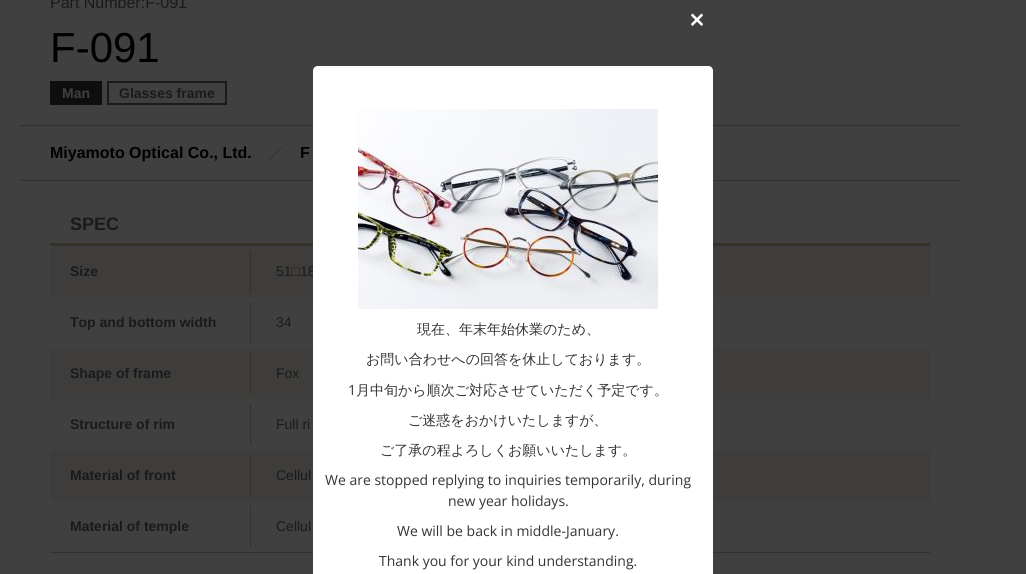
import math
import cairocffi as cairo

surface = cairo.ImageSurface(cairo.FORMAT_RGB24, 1026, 574)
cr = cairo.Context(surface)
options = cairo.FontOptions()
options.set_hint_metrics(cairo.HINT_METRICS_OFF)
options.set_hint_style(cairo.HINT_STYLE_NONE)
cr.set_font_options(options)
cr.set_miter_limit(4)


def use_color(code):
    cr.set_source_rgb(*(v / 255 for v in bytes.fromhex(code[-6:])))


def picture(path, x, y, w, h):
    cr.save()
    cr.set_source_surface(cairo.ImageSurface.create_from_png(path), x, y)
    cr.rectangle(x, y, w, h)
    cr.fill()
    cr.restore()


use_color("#404040")
cr.paint()
cr.select_font_face("Liberation Sans")
cr.set_font_size(16)
use_color("#1a1a1a")
cr.move_to(50, 8)
cr.show_text("Part Number:F-091")
cr.set_font_size(42)
use_color("#000000")
cr.move_to(50, 62)
cr.show_text("F-091")
use_color("#0e0e0e")
cr.rectangle(50, 81, 52, 24)
cr.fill()
cr.select_font_face("Liberation Sans", cairo.FONT_SLANT_NORMAL, cairo.FONT_WEIGHT_BOLD)
cr.set_font_size(14)
use_color("#404040")
cr.move_to(62, 98)
cr.show_text("Man")
cr.rectangle(108, 82, 118, 22)
use_color("#1a1a1a")
cr.stroke()
cr.move_to(119, 98)
cr.show_text("Glasses frame")
use_color("#34312b")
cr.rectangle(20, 125, 940, 1)
cr.fill()
cr.rectangle(20, 180, 940, 1)
cr.fill()
cr.set_font_size(16)
use_color("#000000")
cr.move_to(50, 158)
cr.show_text("Miyamoto Optical Co., Ltd.")
cr.select_font_face("WenQuanYi Zen Hei Medium")
use_color("#34312b")
cr.move_to(268, 158)
cr.show_text("／")
cr.select_font_face("Liberation Sans", cairo.FONT_SLANT_NORMAL, cairo.FONT_WEIGHT_BOLD)
use_color("#000000")
cr.move_to(300, 158)
cr.show_text("F")
cr.set_font_size(18)
use_color("#1a1a1a")
cr.move_to(70, 230)
cr.show_text("SPEC")
use_color("#3e3d3b")
cr.rectangle(50, 246, 880, 51)
cr.fill()
use_color("#34312b")
cr.rectangle(50, 243, 880, 3)
cr.fill()
cr.set_font_size(14)
use_color("#1a1a1a")
cr.move_to(70, 276)
cr.show_text("Size")
use_color("#34312b")
cr.rectangle(250, 251, 1, 41)
cr.fill()
cr.select_font_face("Liberation Sans")
use_color("#1a1a1a")
cr.move_to(276, 276)
cr.show_text("51□18")
cr.select_font_face("Liberation Sans", cairo.FONT_SLANT_NORMAL, cairo.FONT_WEIGHT_BOLD)
cr.move_to(70, 327)
cr.show_text("Top and bottom width")
use_color("#34312b")
cr.rectangle(250, 302, 1, 41)
cr.fill()
cr.select_font_face("Liberation Sans")
use_color("#1a1a1a")
cr.move_to(276, 327)
cr.show_text("34")
use_color("#3e3d3b")
cr.rectangle(50, 348, 880, 51)
cr.fill()
cr.select_font_face("Liberation Sans", cairo.FONT_SLANT_NORMAL, cairo.FONT_WEIGHT_BOLD)
use_color("#1a1a1a")
cr.move_to(70, 378)
cr.show_text("Shape of frame")
use_color("#34312b")
cr.rectangle(250, 353, 1, 41)
cr.fill()
cr.select_font_face("Liberation Sans")
use_color("#1a1a1a")
cr.move_to(276, 378)
cr.show_text("Fox")
cr.select_font_face("Liberation Sans", cairo.FONT_SLANT_NORMAL, cairo.FONT_WEIGHT_BOLD)
cr.move_to(70, 429)
cr.show_text("Structure of rim")
use_color("#34312b")
cr.rectangle(250, 404, 1, 41)
cr.fill()
cr.select_font_face("Liberation Sans")
use_color("#1a1a1a")
cr.move_to(276, 429)
cr.show_text("Full ri")
use_color("#3e3d3b")
cr.rectangle(50, 450, 880, 51)
cr.fill()
cr.select_font_face("Liberation Sans", cairo.FONT_SLANT_NORMAL, cairo.FONT_WEIGHT_BOLD)
use_color("#1a1a1a")
cr.move_to(70, 480)
cr.show_text("Material of front")
use_color("#34312b")
cr.rectangle(250, 455, 1, 41)
cr.fill()
cr.select_font_face("Liberation Sans")
use_color("#1a1a1a")
cr.move_to(276, 480)
cr.show_text("Cellul")
use_color("#34312b")
cr.rectangle(50, 552, 880, 1)
cr.fill()
cr.select_font_face("Liberation Sans", cairo.FONT_SLANT_NORMAL, cairo.FONT_WEIGHT_BOLD)
use_color("#1a1a1a")
cr.move_to(70, 531)
cr.show_text("Material of temple")
use_color("#34312b")
cr.rectangle(250, 506, 1, 41)
cr.fill()
cr.select_font_face("Liberation Sans")
use_color("#1a1a1a")
cr.move_to(276, 531)
cr.show_text("Cellul")
picture("img1.png", 691, 13, 12, 13)
use_color("#ffffff")
cr.new_path()
cr.move_to(318, 66)
cr.line_to(708, 66)
cr.curve_to(711, 66, 713, 68, 713, 71)
cr.line_to(713, 574)
cr.line_to(313, 574)
cr.line_to(313, 71)
cr.curve_to(313, 68, 315, 66, 318, 66)
cr.close_path()
cr.fill()
picture("img2.png", 358, 109, 300, 200)
cr.select_font_face("WenQuanYi Zen Hei Medium")
use_color("#343434")
cr.move_to(417, 334)
cr.show_text("現在、年末年始休業のため、")
cr.move_to(366, 364)
cr.show_text("お問い合わせへの回答を休止しております。")
cr.select_font_face("Open Sans")
cr.move_to(348, 395)
cr.show_text("1")
cr.select_font_face("WenQuanYi Zen Hei Medium")
cr.move_to(356, 395)
cr.show_text("月中旬から順次ご対応させていただく予定です。")
cr.move_to(408, 425)
cr.show_text("ご迷惑をおかけいたしますが、")
cr.move_to(380, 455)
cr.show_text("ご了承の程よろしくお願いいたします。")
cr.select_font_face("Open Sans")
cr.move_to(325, 485)
cr.show_text("We are stopped replying to inquiries temporarily, during")
cr.move_to(448, 506)
cr.show_text("new year holidays.")
cr.move_to(397, 536)
cr.show_text("We will be back in middle-January.")
cr.move_to(379, 566)
cr.show_text("Thank you for your kind understanding.")
surface.write_to_png("result.png")
